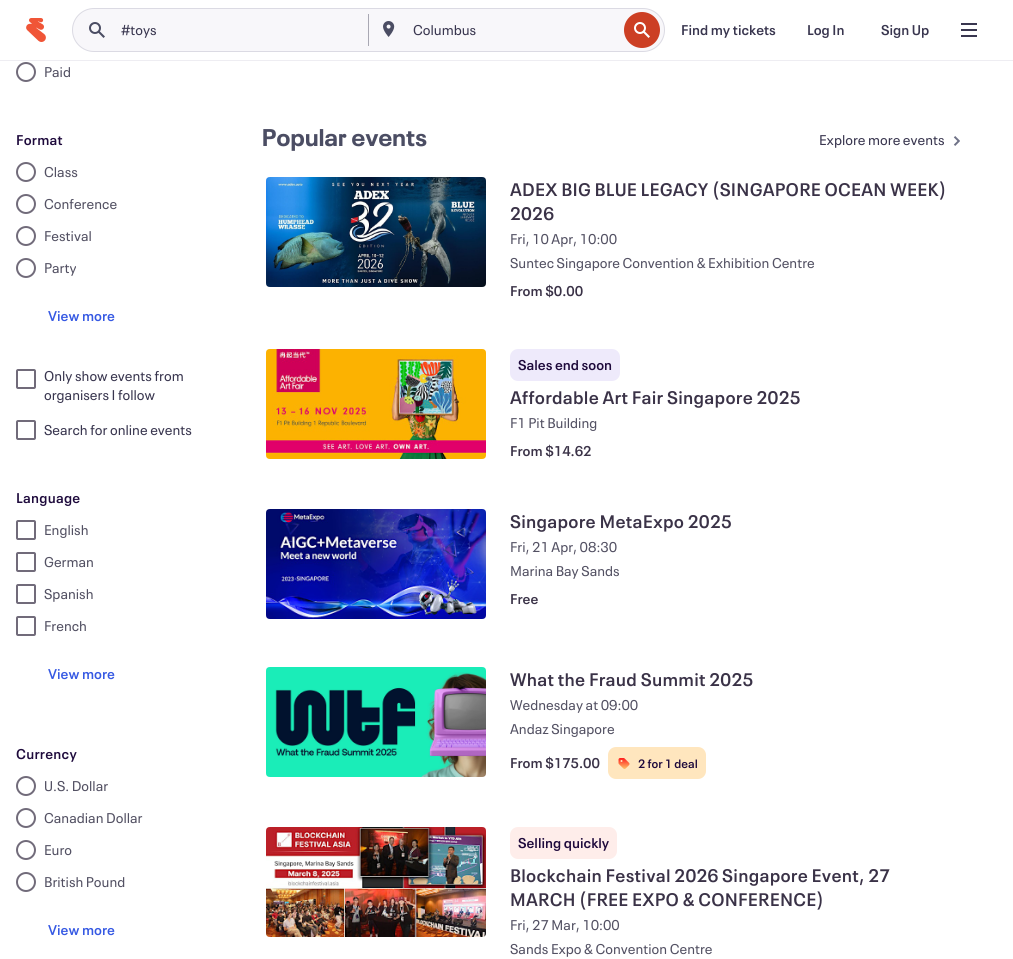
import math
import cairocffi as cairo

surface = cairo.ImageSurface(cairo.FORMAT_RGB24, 1013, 959)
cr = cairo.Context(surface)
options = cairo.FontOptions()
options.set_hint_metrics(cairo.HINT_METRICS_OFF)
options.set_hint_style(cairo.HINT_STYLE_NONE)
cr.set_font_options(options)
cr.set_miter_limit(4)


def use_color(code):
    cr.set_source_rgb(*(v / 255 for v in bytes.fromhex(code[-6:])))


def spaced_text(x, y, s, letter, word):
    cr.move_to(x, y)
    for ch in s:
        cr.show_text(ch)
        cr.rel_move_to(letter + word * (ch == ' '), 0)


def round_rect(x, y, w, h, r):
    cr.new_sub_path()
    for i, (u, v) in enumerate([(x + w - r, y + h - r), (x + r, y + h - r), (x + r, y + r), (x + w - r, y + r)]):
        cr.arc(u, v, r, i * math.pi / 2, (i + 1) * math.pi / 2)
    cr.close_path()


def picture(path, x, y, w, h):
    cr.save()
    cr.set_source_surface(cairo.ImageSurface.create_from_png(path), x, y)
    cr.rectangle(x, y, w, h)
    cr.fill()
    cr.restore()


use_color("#ffffff")
cr.paint()
use_color("#eeedf2")
cr.rectangle(0, 60, 1013, 1)
cr.fill()
picture("img1.png", 26, 18, 20, 24)
use_color("#f8f7fa")
round_rect(72.5, 8.5, 592, 43, 21.5)
cr.fill_preserve()
use_color("#dbdae3")
cr.set_line_width(1)
cr.stroke()
picture("img2.png", 89, 22, 16, 16)
cr.select_font_face("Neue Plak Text")
cr.set_font_size(14)
use_color("#39364f")
cr.move_to(121, 35)
cr.show_text("#toys")
use_color("#a9a8b3")
cr.rectangle(368, 14, 1, 32)
cr.fill()
picture("img3.png", 383, 21, 12, 16)
use_color("#39364f")
cr.move_to(413, 35)
cr.show_text("Columbus")
picture("img4.png", 624, 12, 36, 36)
cr.select_font_face("Neue Plak Text SemiBold")
cr.move_to(681, 35)
cr.show_text("Find my tickets")
cr.move_to(807, 35)
cr.show_text("Log In")
cr.move_to(881, 35)
cr.show_text("Sign Up")
picture("img5.png", 961, 23, 16, 14)
cr.arc(26, 72, 9, 0, 2 * math.pi)
use_color("#716b7a")
cr.set_line_width(2)
cr.stroke()
cr.select_font_face("Neue Plak Text")
use_color("#535163")
cr.move_to(44, 77)
cr.show_text("Paid")
cr.select_font_face("Neue Plak Text SemiBold")
use_color("#1e0a3c")
spaced_text(16, 145, "Format", 0.25, 0)
cr.new_path()
cr.arc(26, 172, 9, 0, 2 * math.pi)
use_color("#716b7a")
cr.stroke()
cr.select_font_face("Neue Plak Text")
use_color("#535163")
cr.move_to(44, 177)
cr.show_text("Class")
cr.new_path()
cr.arc(26, 204, 9, 0, 2 * math.pi)
use_color("#716b7a")
cr.stroke()
use_color("#535163")
cr.move_to(44, 209)
cr.show_text("Conference")
cr.new_path()
cr.arc(26, 236, 9, 0, 2 * math.pi)
use_color("#716b7a")
cr.stroke()
use_color("#535163")
cr.move_to(44, 241)
cr.show_text("Festival")
cr.new_path()
cr.arc(26, 268, 9, 0, 2 * math.pi)
use_color("#716b7a")
cr.stroke()
use_color("#535163")
cr.move_to(44, 273)
cr.show_text("Party")
cr.select_font_face("Neue Plak Text SemiBold")
use_color("#3659e3")
cr.move_to(48, 321)
cr.show_text("View more")
round_rect(17, 370, 18, 18, 1)
use_color("#716b7a")
cr.stroke()
cr.select_font_face("Neue Plak Text")
use_color("#39364f")
cr.move_to(44, 381)
cr.show_text("Only show events from")
cr.move_to(44, 400)
cr.show_text("organisers I follow")
round_rect(17, 421, 18, 18, 1)
use_color("#716b7a")
cr.stroke()
use_color("#39364f")
cr.move_to(44, 435)
cr.show_text("Search for online events")
cr.select_font_face("Neue Plak Text SemiBold")
use_color("#1e0a3c")
spaced_text(16, 503, "Language", 0.25, 0)
round_rect(17, 521, 18, 18, 1)
use_color("#716b7a")
cr.stroke()
cr.select_font_face("Neue Plak Text")
use_color("#535163")
cr.move_to(44, 535)
cr.show_text("English")
round_rect(17, 553, 18, 18, 1)
use_color("#716b7a")
cr.stroke()
use_color("#535163")
cr.move_to(44, 567)
cr.show_text("German")
round_rect(17, 585, 18, 18, 1)
use_color("#716b7a")
cr.stroke()
use_color("#535163")
cr.move_to(44, 599)
cr.show_text("Spanish")
round_rect(17, 617, 18, 18, 1)
use_color("#716b7a")
cr.stroke()
use_color("#535163")
cr.move_to(44, 631)
cr.show_text("French")
cr.select_font_face("Neue Plak Text SemiBold")
use_color("#3659e3")
cr.move_to(48, 679)
cr.show_text("View more")
use_color("#1e0a3c")
spaced_text(16, 759, "Currency", 0.25, 0)
cr.new_path()
cr.arc(26, 786, 9, 0, 2 * math.pi)
use_color("#716b7a")
cr.stroke()
cr.select_font_face("Neue Plak Text")
use_color("#535163")
cr.move_to(44, 791)
cr.show_text("U.S. Dollar")
cr.new_path()
cr.arc(26, 818, 9, 0, 2 * math.pi)
use_color("#716b7a")
cr.stroke()
use_color("#535163")
cr.move_to(44, 823)
cr.show_text("Canadian Dollar")
cr.new_path()
cr.arc(26, 850, 9, 0, 2 * math.pi)
use_color("#716b7a")
cr.stroke()
use_color("#535163")
cr.move_to(44, 855)
cr.show_text("Euro")
cr.new_path()
cr.arc(26, 882, 9, 0, 2 * math.pi)
use_color("#716b7a")
cr.stroke()
use_color("#535163")
cr.move_to(44, 887)
cr.show_text("British Pound")
cr.select_font_face("Neue Plak Text SemiBold")
use_color("#3659e3")
cr.move_to(48, 935)
cr.show_text("View more")
cr.select_font_face("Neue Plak", cairo.FONT_SLANT_NORMAL, cairo.FONT_WEIGHT_BOLD)
cr.set_font_size(24)
use_color("#4b4d63")
spaced_text(262, 146, "Popular events", 0.25, 0)
cr.select_font_face("Neue Plak Text")
cr.set_font_size(14)
use_color("#39364f")
cr.move_to(819, 145)
cr.show_text("Explore more events")
picture("img6.png", 953, 136, 7, 10)
picture("img7.png", 266, 177, 220, 110)
cr.select_font_face("Neue Plak Text SemiBold")
cr.set_font_size(18)
use_color("#3a3247")
spaced_text(510, 196, "ADEX BIG BLUE LEGACY (SINGAPORE OCEAN WEEK)", 0.25, 0)
spaced_text(510, 220, "2026", 0.25, 0)
cr.select_font_face("Neue Plak Text")
cr.set_font_size(14)
use_color("#535163")
cr.move_to(510, 244)
cr.show_text("Fri, 10 Apr, 10:00")
cr.move_to(510, 268)
cr.show_text("Suntec Singapore Convention & Exhibition Centre")
cr.select_font_face("Neue Plak Text SemiBold")
use_color("#3a3247")
cr.move_to(510, 296)
cr.show_text("From $0.00")
picture("img8.png", 266, 349, 220, 110)
use_color("#eeeafb")
round_rect(510, 349, 110, 32, 8)
cr.fill()
use_color("#1e0a3c")
cr.move_to(518, 370)
cr.show_text("Sales end soon")
cr.set_font_size(18)
use_color("#3a3247")
spaced_text(510, 404, "Affordable Art Fair Singapore 2025", 0.25, 0)
cr.select_font_face("Neue Plak Text")
cr.set_font_size(14)
use_color("#535163")
cr.move_to(510, 428)
cr.show_text("F1 Pit Building")
cr.select_font_face("Neue Plak Text SemiBold")
use_color("#3a3247")
cr.move_to(510, 456)
cr.show_text("From $14.62")
picture("img9.png", 266, 509, 220, 110)
cr.set_font_size(18)
spaced_text(510, 528, "Singapore MetaExpo 2025", 0.25, 0)
cr.select_font_face("Neue Plak Text")
cr.set_font_size(14)
use_color("#535163")
cr.move_to(510, 552)
cr.show_text("Fri, 21 Apr, 08:30")
cr.move_to(510, 576)
cr.show_text("Marina Bay Sands")
cr.select_font_face("Neue Plak Text SemiBold")
use_color("#3a3247")
cr.move_to(510, 604)
cr.show_text("Free")
picture("img10.png", 266, 667, 220, 110)
cr.set_font_size(18)
spaced_text(510, 686, "What the Fraud Summit 2025", 0.25, 0)
cr.select_font_face("Neue Plak Text")
cr.set_font_size(14)
use_color("#535163")
cr.move_to(510, 710)
cr.show_text("Wednesday at 09:00")
cr.move_to(510, 734)
cr.show_text("Andaz Singapore")
cr.select_font_face("Neue Plak Text SemiBold")
use_color("#3a3247")
cr.move_to(510, 768)
cr.show_text("From $175.00")
use_color("#ffe6be")
round_rect(608, 747, 98, 32, 8)
cr.fill()
picture("img11.png", 618, 758, 12, 11)
cr.set_font_size(12)
use_color("#1e0a3c")
cr.move_to(638, 768)
cr.show_text("2 for 1 deal")
picture("img12.png", 266, 827, 220, 110)
use_color("#feedea")
round_rect(510, 827, 107, 32, 8)
cr.fill()
cr.set_font_size(14)
use_color("#1e0a3c")
cr.move_to(518, 848)
cr.show_text("Selling quickly")
cr.set_font_size(18)
use_color("#3a3247")
spaced_text(510, 882, "Blockchain Festival 2026 Singapore Event, 27", 0.25, 0)
spaced_text(510, 906, "MARCH (FREE EXPO & CONFERENCE)", 0.25, 0)
cr.select_font_face("Neue Plak Text")
cr.set_font_size(14)
use_color("#535163")
cr.move_to(510, 930)
cr.show_text("Fri, 27 Mar, 10:00")
cr.move_to(510, 954)
cr.show_text("Sands Expo & Convention Centre")
surface.write_to_png("result.png")
